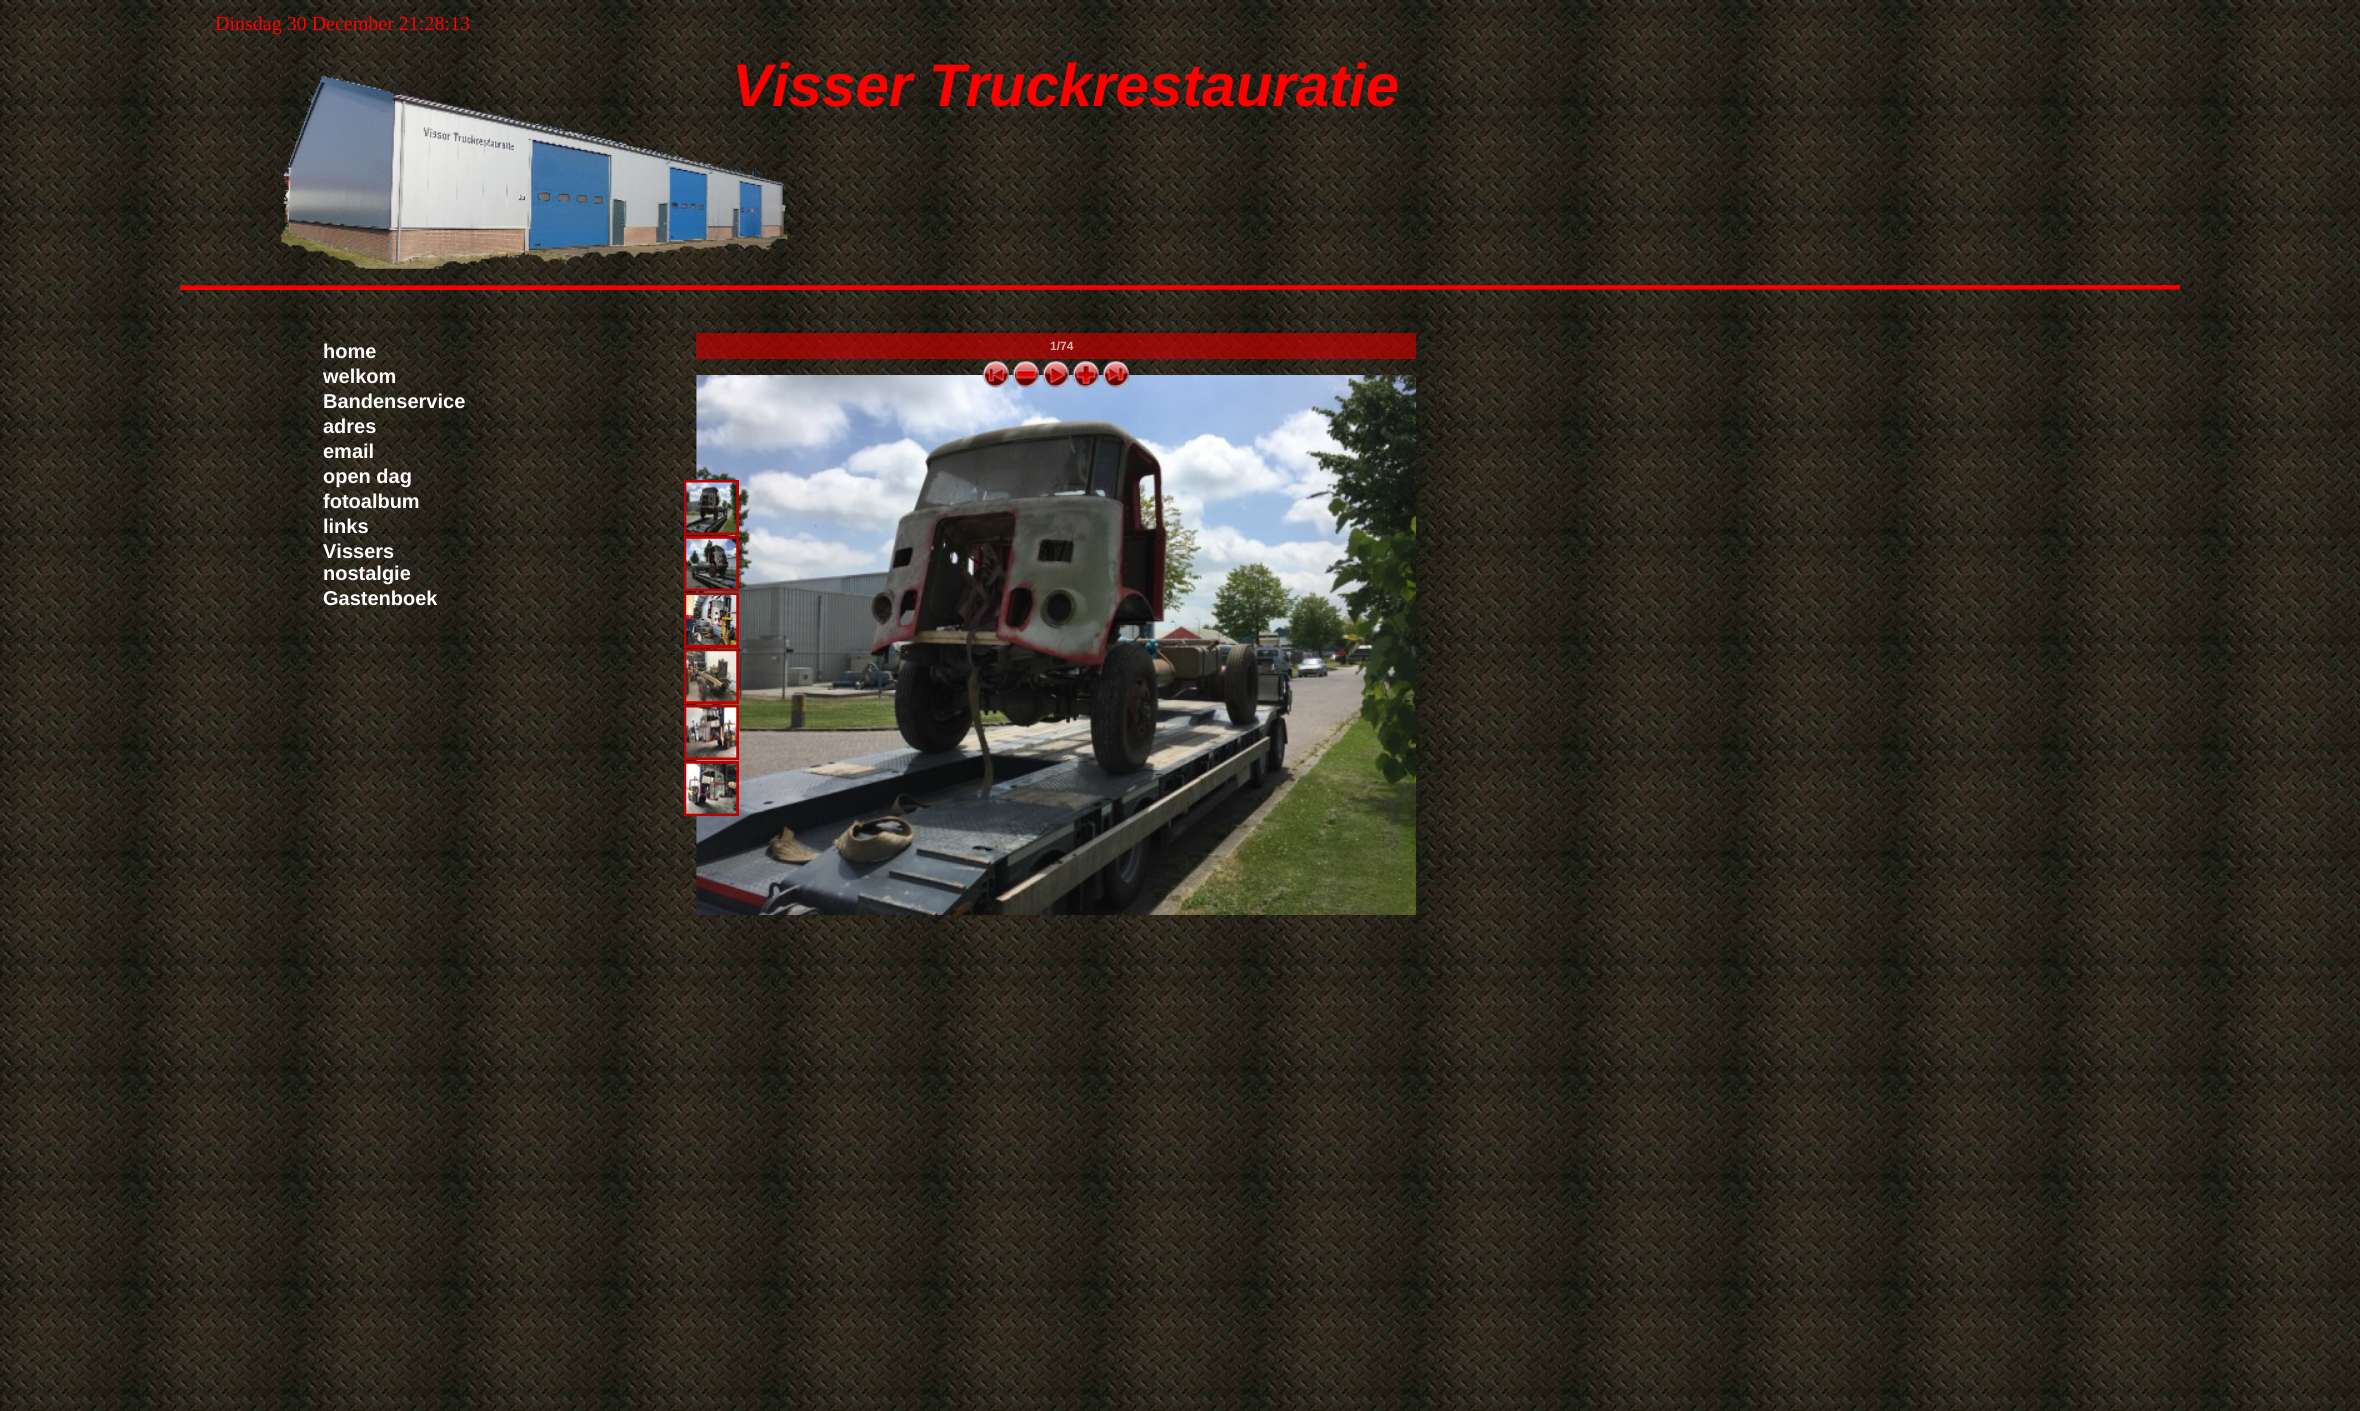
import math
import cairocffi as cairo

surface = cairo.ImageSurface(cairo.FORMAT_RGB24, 2360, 1411)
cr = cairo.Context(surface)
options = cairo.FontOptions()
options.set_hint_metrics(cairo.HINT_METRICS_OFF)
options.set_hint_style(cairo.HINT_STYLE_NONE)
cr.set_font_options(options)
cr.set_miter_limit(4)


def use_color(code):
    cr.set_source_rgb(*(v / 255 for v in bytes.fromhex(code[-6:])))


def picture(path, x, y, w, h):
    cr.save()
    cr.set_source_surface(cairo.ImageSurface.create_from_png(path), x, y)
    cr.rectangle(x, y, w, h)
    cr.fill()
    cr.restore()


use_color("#ffffff")
cr.paint()
picture("img1.png", 0, 0, 2360, 1411)
cr.select_font_face("Liberation Serif")
cr.set_font_size(20)
use_color("#ff0000")
cr.move_to(215, 30)
cr.show_text("Dinsdag 30 December 21:28:13")
cr.select_font_face("Liberation Sans", cairo.FONT_SLANT_ITALIC, cairo.FONT_WEIGHT_BOLD)
cr.set_font_size(60)
cr.move_to(732, 106)
cr.show_text("Visser Truckrestauratie")
picture("img2.png", 271, 61, 517, 208)
picture("img3.png", 180, 285, 2000, 5)
cr.select_font_face("Liberation Sans", cairo.FONT_SLANT_NORMAL, cairo.FONT_WEIGHT_BOLD)
cr.set_font_size(20)
use_color("#ffffff")
cr.move_to(323, 358)
cr.show_text("home")
cr.move_to(323, 383)
cr.show_text("welkom")
cr.move_to(323, 408)
cr.show_text("Bandenservice")
cr.move_to(323, 433)
cr.show_text("adres")
cr.move_to(323, 458)
cr.show_text("email")
cr.move_to(323, 483)
cr.show_text("open dag")
cr.move_to(323, 508)
cr.show_text("fotoalbum")
cr.move_to(323, 533)
cr.show_text("links")
cr.move_to(323, 558)
cr.show_text("Vissers")
cr.move_to(323, 580)
cr.show_text("nostalgie")
cr.move_to(323, 605)
cr.show_text("Gastenboek")
cr.set_source_rgba(0.749, 0, 0, 0.7)
cr.rectangle(696, 333, 720, 26)
cr.fill()
cr.set_font_size(12)
use_color("#deb6b5")
cr.move_to(1050, 350)
cr.show_text("1/74")
picture("img9.png", 696, 375, 721, 540)
picture("img4.png", 982, 360, 29, 28)
picture("img5.png", 1012, 360, 29, 28)
picture("img6.png", 1042, 360, 29, 28)
picture("img7.png", 1072, 360, 29, 28)
picture("img8.png", 1102, 360, 29, 28)
cr.rectangle(685.5, 481.5, 52, 52)
use_color("#bf0000")
cr.set_line_width(3)
cr.stroke()
picture("img10.png", 686, 482, 51, 51)
cr.rectangle(685.5, 537.5, 52, 52)
cr.stroke()
picture("img11.png", 686, 538, 51, 51)
cr.rectangle(685.5, 594.5, 52, 52)
cr.stroke()
picture("img12.png", 686, 595, 51, 50)
cr.rectangle(685.5, 650.5, 52, 52)
cr.stroke()
picture("img13.png", 686, 651, 51, 51)
cr.rectangle(685.5, 706.5, 52, 52)
cr.stroke()
picture("img14.png", 686, 707, 51, 51)
cr.rectangle(685.5, 762.5, 52, 52)
cr.stroke()
picture("img15.png", 686, 763, 51, 51)
surface.write_to_png("result.png")
